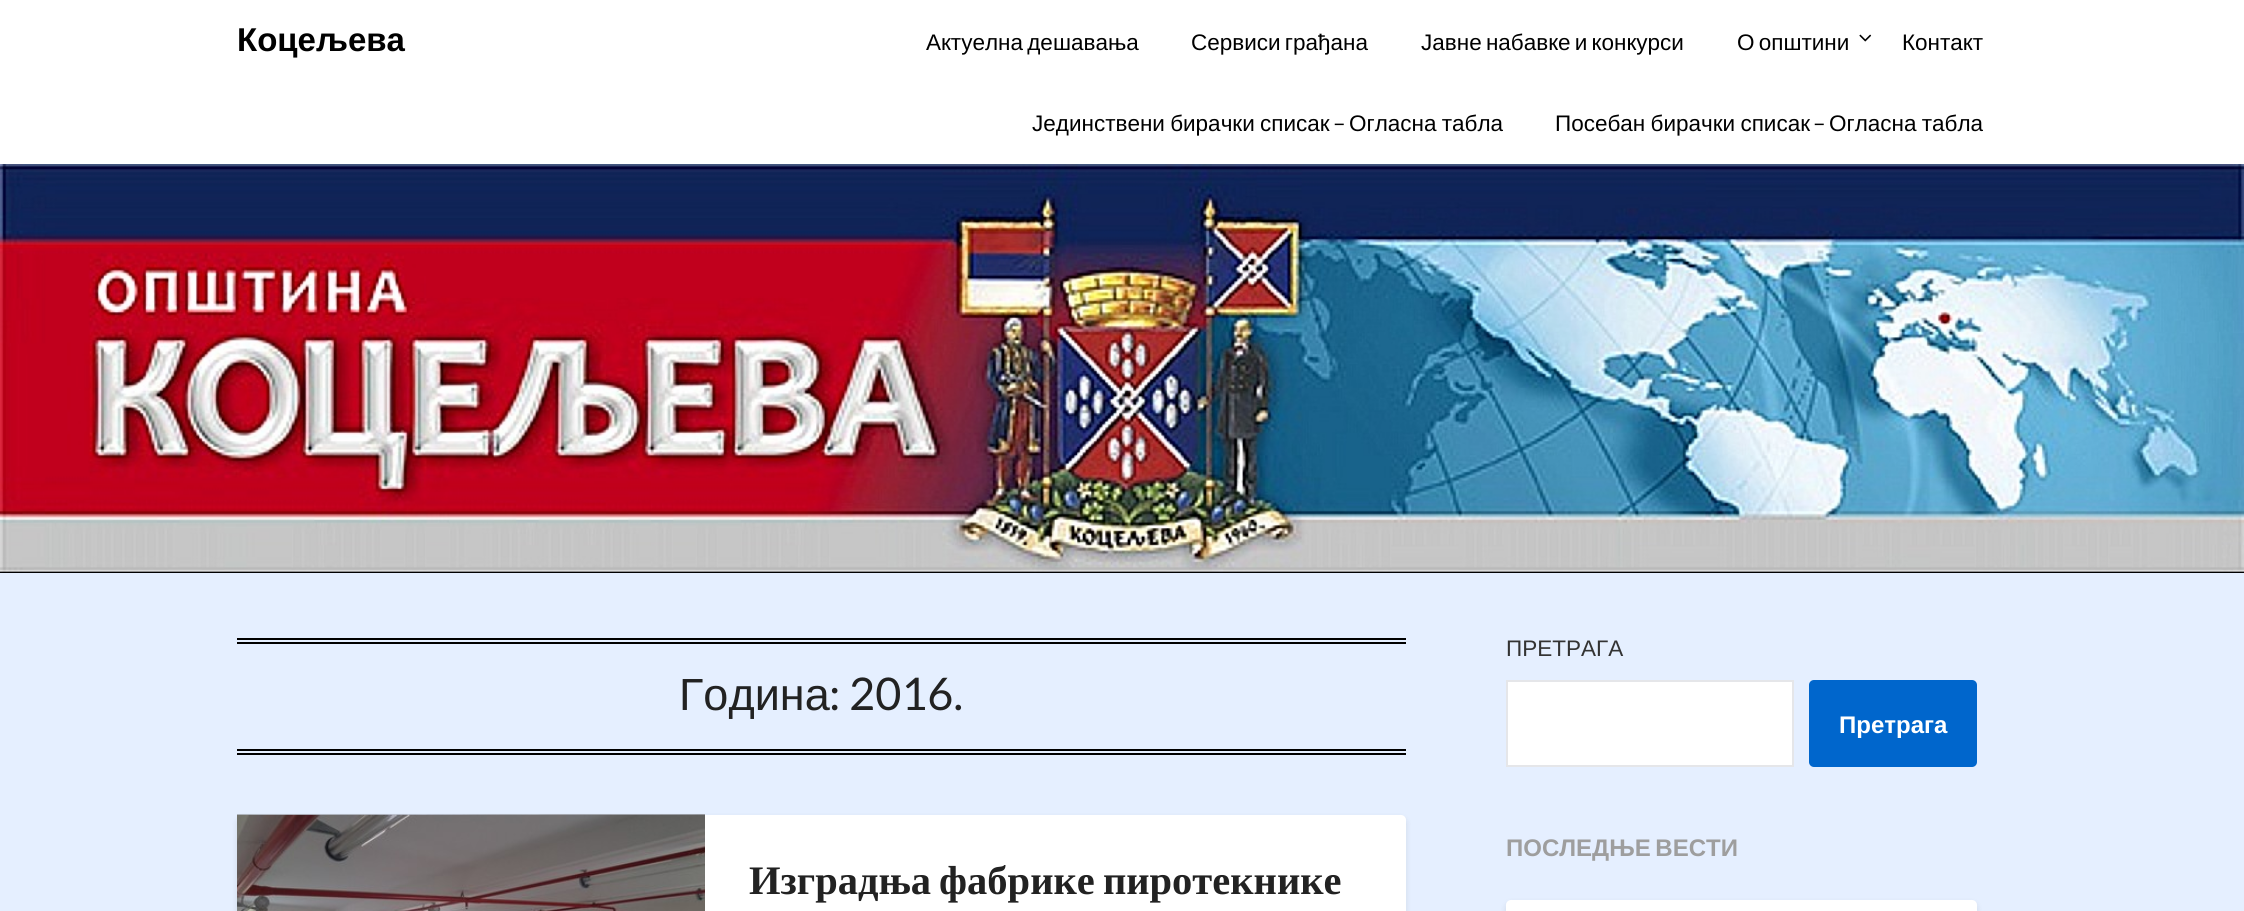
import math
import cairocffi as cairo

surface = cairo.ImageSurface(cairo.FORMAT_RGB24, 2244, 911)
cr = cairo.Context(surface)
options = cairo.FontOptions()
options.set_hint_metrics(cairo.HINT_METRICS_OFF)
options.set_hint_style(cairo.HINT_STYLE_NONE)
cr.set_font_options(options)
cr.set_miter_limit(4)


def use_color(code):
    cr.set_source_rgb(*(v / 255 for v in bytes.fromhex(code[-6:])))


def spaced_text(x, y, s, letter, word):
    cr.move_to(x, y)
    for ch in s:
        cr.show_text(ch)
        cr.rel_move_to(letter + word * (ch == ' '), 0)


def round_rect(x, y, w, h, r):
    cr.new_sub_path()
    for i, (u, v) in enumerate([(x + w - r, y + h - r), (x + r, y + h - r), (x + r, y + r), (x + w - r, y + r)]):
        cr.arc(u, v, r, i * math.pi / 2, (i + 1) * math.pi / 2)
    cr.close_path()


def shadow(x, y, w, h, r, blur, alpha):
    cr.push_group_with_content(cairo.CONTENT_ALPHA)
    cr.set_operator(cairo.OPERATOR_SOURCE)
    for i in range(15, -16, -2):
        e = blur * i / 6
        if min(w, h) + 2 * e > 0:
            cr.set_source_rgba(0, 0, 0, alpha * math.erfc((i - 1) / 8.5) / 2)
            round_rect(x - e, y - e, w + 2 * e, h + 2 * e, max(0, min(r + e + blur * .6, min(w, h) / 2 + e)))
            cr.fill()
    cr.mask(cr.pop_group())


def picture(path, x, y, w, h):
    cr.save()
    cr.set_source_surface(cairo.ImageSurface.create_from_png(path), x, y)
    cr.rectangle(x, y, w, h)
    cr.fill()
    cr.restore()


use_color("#e5efff")
cr.paint()
picture("img2.png", 0, 164, 2244, 409)
use_color("#000000")
shadow(0, 3, 2244, 164, 0, 3, 0.1)
use_color("#ffffff")
cr.rectangle(0, 0, 2244, 164)
cr.fill()
cr.select_font_face("Liberation Sans", cairo.FONT_SLANT_NORMAL, cairo.FONT_WEIGHT_BOLD)
cr.set_font_size(33)
use_color("#000000")
cr.move_to(237, 51)
cr.show_text("Коцељева")
cr.select_font_face("Liberation Sans")
cr.set_font_size(22.5)
spaced_text(926, 50, "Актуелна дешавања", 0, -2)
spaced_text(1191, 50, "Сервиси грађана", 0, -2)
spaced_text(1421, 50, "Јавне набавке и конкурси", 0, -2)
spaced_text(1737, 50, "О општини", 0, -2)
picture("img1.png", 1859, 34, 13, 8)
cr.move_to(1902, 50)
cr.show_text("Контакт")
spaced_text(1032, 131, "Јединствени бирачки списак", 0, -1)
cr.select_font_face("Lato")
cr.move_to(1333, 131)
cr.show_text("–")
cr.select_font_face("Liberation Sans")
spaced_text(1349, 131, "Огласна табла", 0, -1)
spaced_text(1555, 131, "Посебан бирачки списак", 0, -1)
cr.select_font_face("Lato")
cr.move_to(1813, 131)
cr.show_text("–")
cr.select_font_face("Liberation Sans")
spaced_text(1829, 131, "Огласна табла", 0, -1)
cr.rectangle(237, 638, 1169, 2)
cr.fill()
cr.rectangle(237, 642, 1169, 2)
cr.fill()
cr.rectangle(237, 749, 1169, 2)
cr.fill()
cr.rectangle(237, 753, 1169, 2)
cr.fill()
cr.set_font_size(45)
use_color("#222222")
cr.move_to(679, 710)
cr.show_text("Година")
cr.select_font_face("Lato")
cr.move_to(829, 710)
cr.show_text(": 2016.")
use_color("#000000")
shadow(237, 818, 1169, 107, 5, 3, 0.1)
use_color("#ffffff")
round_rect(237, 815, 1169, 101, 5)
cr.fill()
picture("img3.png", 237, 814, 468, 97)
cr.select_font_face("Liberation Serif", cairo.FONT_SLANT_NORMAL, cairo.FONT_WEIGHT_BOLD)
cr.set_font_size(40.5)
use_color("#222222")
spaced_text(749, 894, "Изградња фабрике пиротекнике", 0, -2)
cr.select_font_face("Liberation Sans")
cr.set_font_size(22.5)
use_color("#333333")
cr.move_to(1506, 656)
cr.show_text("ПРЕТРАГА")
use_color("#ffffff")
cr.rectangle(1507, 681, 286, 85)
cr.fill_preserve()
use_color("#e5e6e9")
cr.stroke()
use_color("#0066cc")
round_rect(1809, 680, 168, 87, 5)
cr.fill()
cr.select_font_face("Liberation Sans", cairo.FONT_SLANT_NORMAL, cairo.FONT_WEIGHT_BOLD)
cr.set_font_size(24)
use_color("#ffffff")
cr.move_to(1839, 733)
cr.show_text("Претрага")
use_color("#9e9e9e")
spaced_text(1506, 856, "ПОСЛЕДЊЕ ВЕСТИ", 0, -2)
use_color("#000000")
shadow(1506, 903, 471, 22, 5, 3, 0.1)
use_color("#ffffff")
round_rect(1506, 900, 471, 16, 5)
cr.fill()
surface.write_to_png("result.png")
